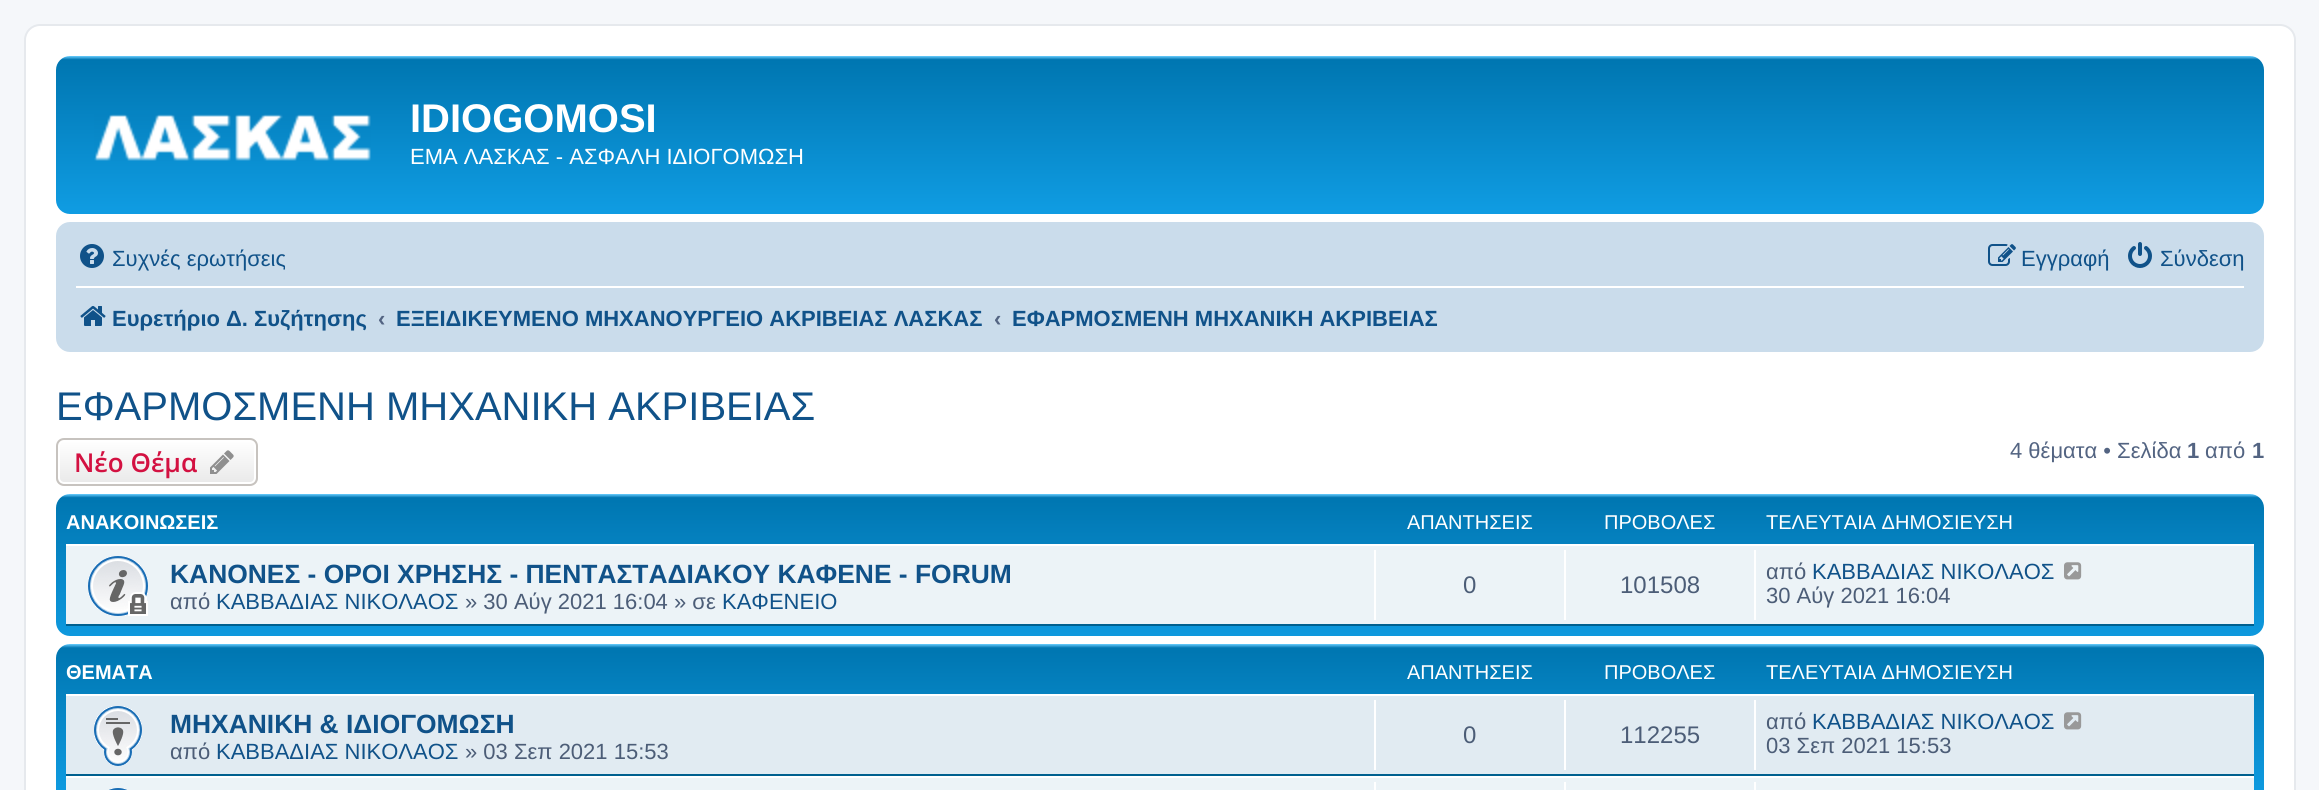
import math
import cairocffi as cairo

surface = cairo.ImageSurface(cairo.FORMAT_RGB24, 2319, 790)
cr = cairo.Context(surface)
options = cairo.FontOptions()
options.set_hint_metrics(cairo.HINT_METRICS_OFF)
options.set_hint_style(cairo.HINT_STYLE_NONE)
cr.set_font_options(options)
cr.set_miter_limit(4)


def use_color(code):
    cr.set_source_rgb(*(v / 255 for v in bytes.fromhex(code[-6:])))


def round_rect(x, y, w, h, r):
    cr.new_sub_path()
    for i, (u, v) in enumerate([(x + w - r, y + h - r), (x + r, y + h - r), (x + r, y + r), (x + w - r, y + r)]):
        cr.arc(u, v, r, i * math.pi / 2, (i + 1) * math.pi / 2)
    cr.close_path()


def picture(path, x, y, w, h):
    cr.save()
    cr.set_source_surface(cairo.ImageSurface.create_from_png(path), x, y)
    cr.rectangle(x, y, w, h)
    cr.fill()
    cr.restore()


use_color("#f5f7fa")
cr.paint()
use_color("#ffffff")
round_rect(25, 25, 2270, 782, 15)
cr.fill_preserve()
use_color("#e6e9ed")
cr.stroke()
gradient = cairo.LinearGradient(1160, 56, 1160, 240)
gradient.add_color_stop_rgba(0, 0.416, 0.808, 1, 1)
gradient.add_color_stop_rgba(0.02, 0, 0.463, 0.694, 1)
gradient.add_color_stop_rgba(1, 0.071, 0.639, 0.922, 1)
cr.set_source(gradient)
round_rect(56, 56, 2208, 158, 14)
cr.fill()
picture("img1.png", 94, 114, 277, 47)
cr.select_font_face("Liberation Sans", cairo.FONT_SLANT_NORMAL, cairo.FONT_WEIGHT_BOLD)
cr.set_font_size(40)
use_color("#ffffff")
cr.move_to(410, 132)
cr.show_text("IDIOGOMOSI")
cr.select_font_face("Liberation Sans")
cr.set_font_size(22)
cr.move_to(410, 164)
cr.show_text("ΕΜΑ ΛΑΣΚΑΣ - ΑΣΦΑΛΗ ΙΔΙΟΓΟΜΩΣΗ")
use_color("#cadceb")
round_rect(56, 222, 2208, 130, 14)
cr.fill()
picture("img2.png", 80, 244, 24, 24)
use_color("#105289")
cr.move_to(112, 266)
cr.show_text("Συχνές ερωτήσεις")
picture("img3.png", 1988, 244, 28, 22)
cr.move_to(2021, 266)
cr.show_text("Εγγραφή")
picture("img4.png", 2128, 242, 24, 26)
cr.move_to(2160, 266)
cr.show_text("Σύνδεση")
use_color("#ffffff")
cr.rectangle(76, 286, 2168, 2)
cr.fill()
picture("img5.png", 80, 306, 26, 20)
cr.select_font_face("Liberation Sans", cairo.FONT_SLANT_NORMAL, cairo.FONT_WEIGHT_BOLD)
use_color("#105289")
cr.move_to(112, 326)
cr.show_text("Ευρετήριο Δ. Συζήτησης")
use_color("#536482")
cr.move_to(378, 326)
cr.show_text("‹")
use_color("#105289")
cr.move_to(396, 326)
cr.show_text("ΕΞΕΙΔΙΚΕΥΜΕΝΟ ΜΗΧΑΝΟΥΡΓΕΙΟ ΑΚΡΙΒΕΙΑΣ ΛΑΣΚΑΣ")
use_color("#536482")
cr.move_to(994, 326)
cr.show_text("‹")
use_color("#105289")
cr.move_to(1012, 326)
cr.show_text("ΕΦΑΡΜΟΣΜΕΝΗ ΜΗΧΑΝΙΚΗ ΑΚΡΙΒΕΙΑΣ")
cr.select_font_face("Liberation Sans")
cr.set_font_size(40)
cr.move_to(56, 420)
cr.show_text("ΕΦΑΡΜΟΣΜΕΝΗ ΜΗΧΑΝΙΚΗ ΑΚΡΙΒΕΙΑΣ")
cr.save()
round_rect(56, 438, 202, 48, 8)
cr.clip()
gradient = cairo.LinearGradient(157, 440, 157, 484)
gradient.add_color_stop_rgba(0, 1, 1, 1, 1)
gradient.add_color_stop_rgba(1, 0.914, 0.914, 0.914, 1)
cr.set_source(gradient)
cr.rectangle(56, 440, 202, 44)
cr.fill()
cr.restore()
round_rect(59, 441, 196, 42, 5)
use_color("#ffffff")
cr.stroke()
round_rect(57, 439, 200, 46, 7)
use_color("#c7c3bf")
cr.stroke()
cr.select_font_face("Open Sans SemiBold")
cr.set_font_size(26)
use_color("#d31141")
cr.move_to(74, 472)
cr.show_text("Νέο Θέμα")
picture("img6.png", 210, 450, 24, 24)
cr.select_font_face("Liberation Sans")
cr.set_font_size(22)
use_color("#536482")
cr.move_to(2010, 458)
cr.show_text("4 θέματα • Σελίδα")
cr.select_font_face("Liberation Sans", cairo.FONT_SLANT_NORMAL, cairo.FONT_WEIGHT_BOLD)
cr.move_to(2187, 458)
cr.show_text("1")
cr.select_font_face("Liberation Sans")
cr.move_to(2205, 458)
cr.show_text("από")
cr.select_font_face("Liberation Sans", cairo.FONT_SLANT_NORMAL, cairo.FONT_WEIGHT_BOLD)
cr.move_to(2252, 458)
cr.show_text("1")
gradient = cairo.LinearGradient(1160, 494, 1160, 678)
gradient.add_color_stop_rgba(0, 0.416, 0.808, 1, 1)
gradient.add_color_stop_rgba(0.02, 0, 0.463, 0.694, 1)
gradient.add_color_stop_rgba(1, 0.071, 0.639, 0.922, 1)
cr.set_source(gradient)
round_rect(56, 494, 2208, 142, 14)
cr.fill()
cr.set_font_size(20)
use_color("#ffffff")
cr.move_to(66, 529)
cr.show_text("ΑΝΑΚΟΙΝΩΣΕΙΣ")
cr.select_font_face("Liberation Sans")
cr.move_to(1407, 529)
cr.show_text("ΑΠΑΝΤΗΣΕΙΣ")
cr.move_to(1604, 529)
cr.show_text("ΠΡΟΒΟΛΕΣ")
cr.move_to(1766, 529)
cr.show_text("ΤΕΛΕΥΤΑΙΑ ΔΗΜΟΣΙΕΥΣΗ")
use_color("#ecf3f7")
cr.rectangle(66, 546, 2188, 78)
cr.fill()
use_color("#ffffff")
cr.rectangle(66, 544, 2188, 2)
cr.fill()
use_color("#00608f")
cr.rectangle(66, 624, 2188, 2)
cr.fill()
picture("img7.png", 88, 556, 60, 60)
cr.select_font_face("Liberation Sans", cairo.FONT_SLANT_NORMAL, cairo.FONT_WEIGHT_BOLD)
cr.set_font_size(26.4)
use_color("#105289")
cr.move_to(170, 583)
cr.show_text("ΚΑΝΟΝΕΣ - ΟΡΟΙ ΧΡΗΣΗΣ - ΠΕΝΤΑΣΤΑΔΙΑΚΟΥ ΚΑΦΕΝΕ - FORUM")
cr.select_font_face("Liberation Sans")
cr.set_font_size(22)
use_color("#4c5d77")
cr.move_to(170, 609)
cr.show_text("από")
use_color("#105289")
cr.move_to(216, 609)
cr.show_text("ΚΑΒΒΑΔΙΑΣ ΝΙΚΟΛΑΟΣ")
use_color("#4c5d77")
cr.move_to(465, 609)
cr.show_text("» 30 Αύγ 2021 16:04 » σε")
use_color("#105289")
cr.move_to(722, 609)
cr.show_text("ΚΑΦΕΝΕΙΟ")
use_color("#ffffff")
cr.rectangle(1374, 550, 2, 70)
cr.fill()
cr.set_font_size(24)
use_color("#4c5d77")
cr.move_to(1463, 593)
cr.show_text("0")
use_color("#ffffff")
cr.rectangle(1564, 550, 2, 70)
cr.fill()
use_color("#4c5d77")
cr.move_to(1620, 593)
cr.show_text("101508")
use_color("#ffffff")
cr.rectangle(1754, 550, 2, 70)
cr.fill()
cr.set_font_size(22)
use_color("#4c5d77")
cr.move_to(1766, 579)
cr.show_text("από")
use_color("#105289")
cr.move_to(1812, 579)
cr.show_text("ΚΑΒΒΑΔΙΑΣ ΝΙΚΟΛΑΟΣ")
picture("img8.png", 2064, 562, 18, 18)
use_color("#4c5d77")
cr.move_to(1766, 603)
cr.show_text("30 Αύγ 2021 16:04")
gradient = cairo.LinearGradient(1160, 644, 1160, 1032)
gradient.add_color_stop_rgba(0, 0.416, 0.808, 1, 1)
gradient.add_color_stop_rgba(0.01, 0, 0.463, 0.694, 1)
gradient.add_color_stop_rgba(0.47, 0.071, 0.639, 0.922, 1)
gradient.add_color_stop_rgba(1, 0.071, 0.639, 0.922, 1)
cr.set_source(gradient)
round_rect(56, 644, 2208, 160, 14)
cr.fill()
cr.select_font_face("Liberation Sans", cairo.FONT_SLANT_NORMAL, cairo.FONT_WEIGHT_BOLD)
cr.set_font_size(20)
use_color("#ffffff")
cr.move_to(66, 679)
cr.show_text("ΘΕΜΑΤΑ")
cr.select_font_face("Liberation Sans")
cr.move_to(1407, 679)
cr.show_text("ΑΠΑΝΤΗΣΕΙΣ")
cr.move_to(1604, 679)
cr.show_text("ΠΡΟΒΟΛΕΣ")
cr.move_to(1766, 679)
cr.show_text("ΤΕΛΕΥΤΑΙΑ ΔΗΜΟΣΙΕΥΣΗ")
use_color("#e1ebf2")
cr.rectangle(66, 696, 2188, 78)
cr.fill()
use_color("#ffffff")
cr.rectangle(66, 694, 2188, 2)
cr.fill()
use_color("#00608f")
cr.rectangle(66, 774, 2188, 2)
cr.fill()
picture("img9.png", 94, 706, 48, 60)
cr.select_font_face("Liberation Sans", cairo.FONT_SLANT_NORMAL, cairo.FONT_WEIGHT_BOLD)
cr.set_font_size(26.4)
use_color("#105289")
cr.move_to(170, 733)
cr.show_text("ΜΗΧΑΝΙΚΗ & ΙΔΙΟΓΟΜΩΣΗ")
cr.select_font_face("Liberation Sans")
cr.set_font_size(22)
use_color("#4c5d77")
cr.move_to(170, 759)
cr.show_text("από")
use_color("#105289")
cr.move_to(216, 759)
cr.show_text("ΚΑΒΒΑΔΙΑΣ ΝΙΚΟΛΑΟΣ")
use_color("#4c5d77")
cr.move_to(465, 759)
cr.show_text("» 03 Σεπ 2021 15:53")
use_color("#ffffff")
cr.rectangle(1374, 700, 2, 70)
cr.fill()
cr.set_font_size(24)
use_color("#4c5d77")
cr.move_to(1463, 743)
cr.show_text("0")
use_color("#ffffff")
cr.rectangle(1564, 700, 2, 70)
cr.fill()
use_color("#4c5d77")
cr.move_to(1620, 743)
cr.show_text("112255")
use_color("#ffffff")
cr.rectangle(1754, 700, 2, 70)
cr.fill()
cr.set_font_size(22)
use_color("#4c5d77")
cr.move_to(1766, 729)
cr.show_text("από")
use_color("#105289")
cr.move_to(1812, 729)
cr.show_text("ΚΑΒΒΑΔΙΑΣ ΝΙΚΟΛΑΟΣ")
picture("img10.png", 2064, 712, 18, 18)
use_color("#4c5d77")
cr.move_to(1766, 753)
cr.show_text("03 Σεπ 2021 15:53")
use_color("#ecf3f7")
cr.rectangle(66, 778, 2188, 12)
cr.fill()
use_color("#ffffff")
cr.rectangle(66, 776, 2188, 2)
cr.fill()
picture("img11.png", 109, 788, 18, 2)
cr.rectangle(1374, 782, 2, 8)
cr.fill()
cr.rectangle(1564, 782, 2, 8)
cr.fill()
cr.rectangle(1754, 782, 2, 8)
cr.fill()
surface.write_to_png("result.png")
